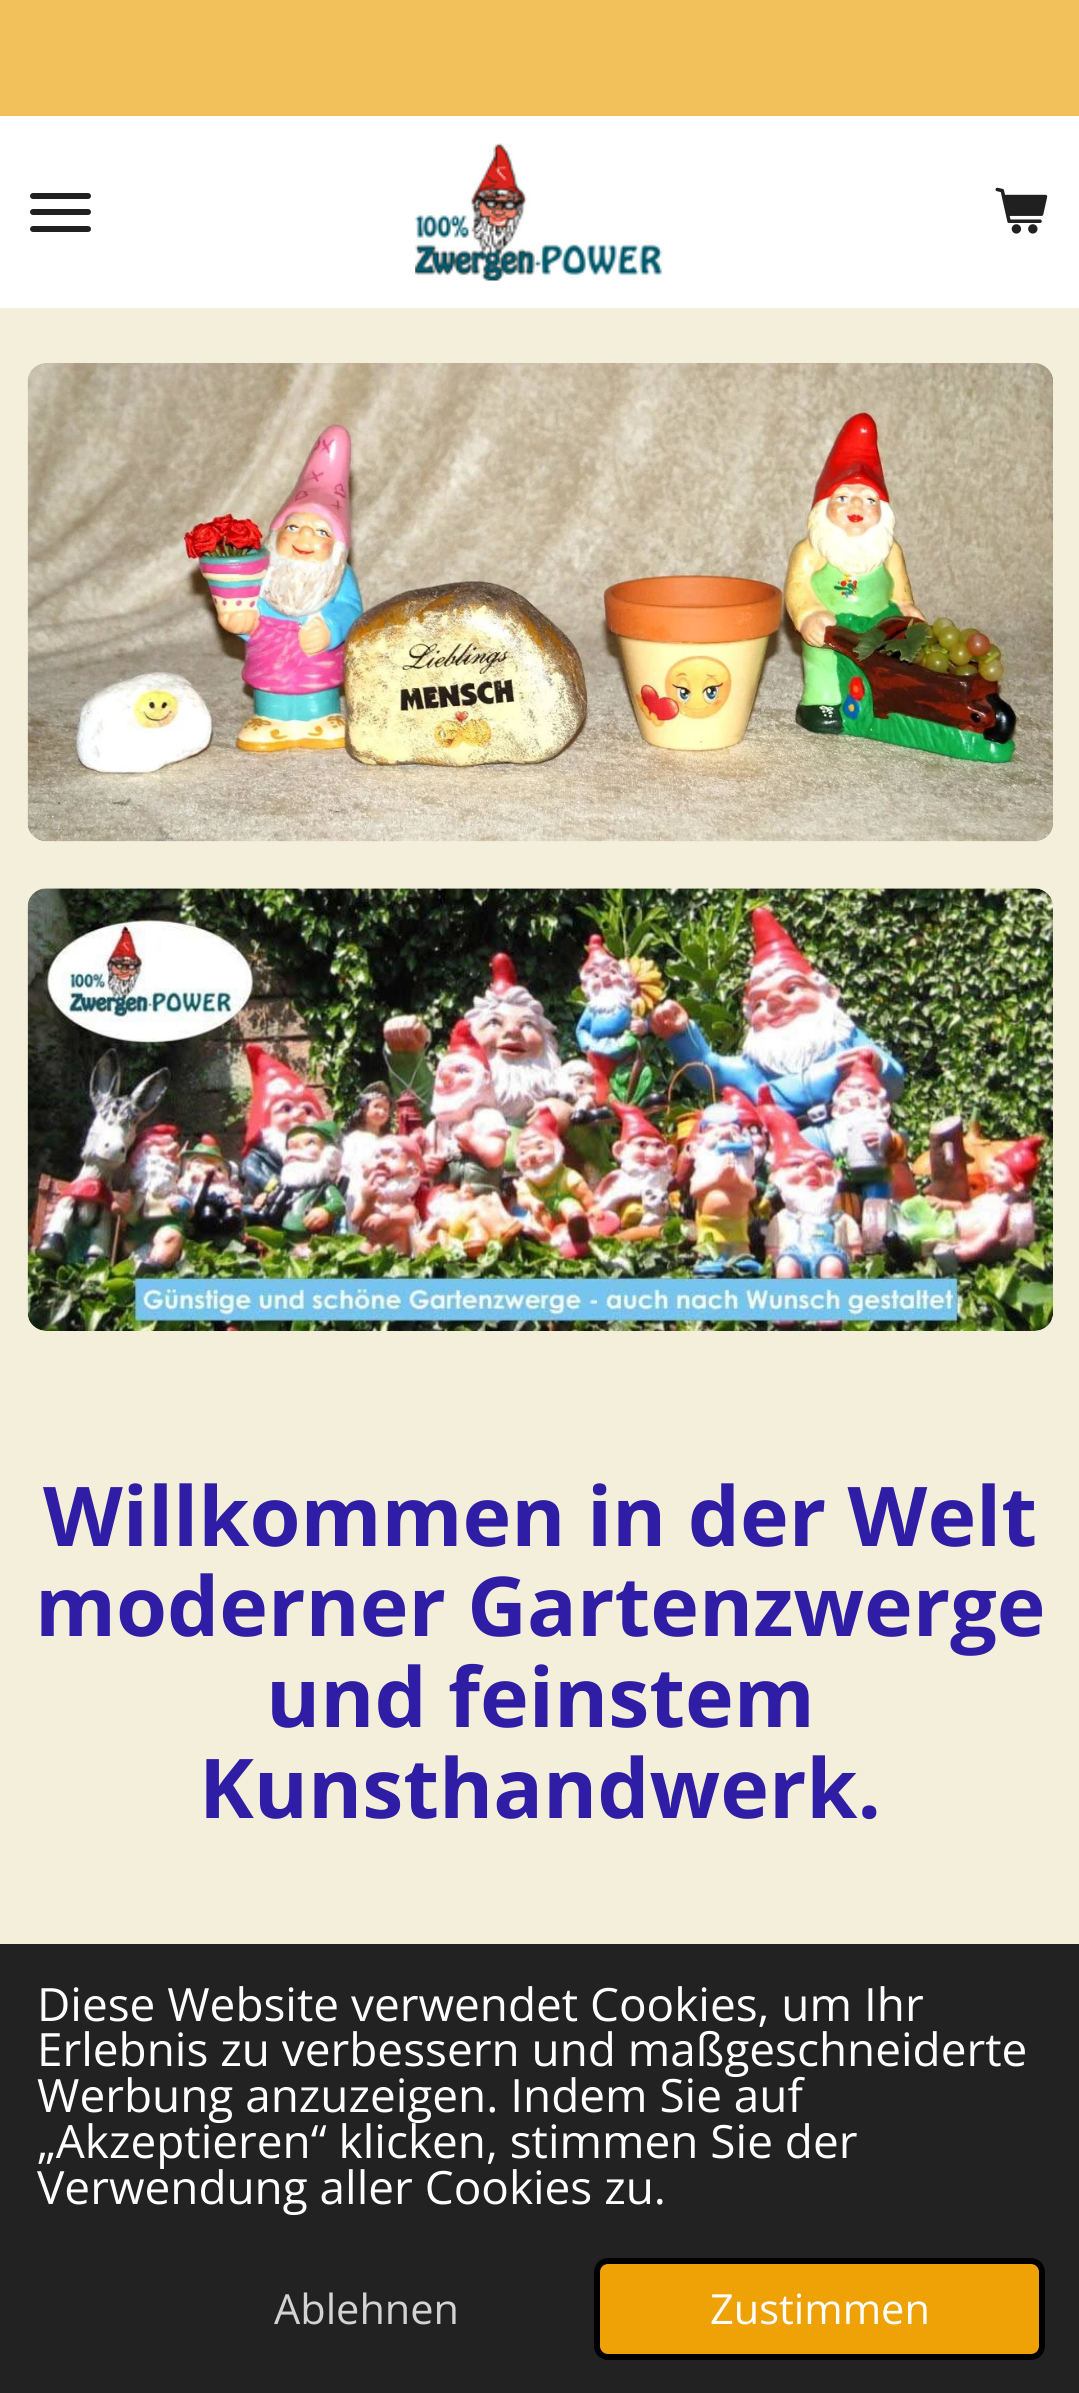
import math
import cairocffi as cairo

surface = cairo.ImageSurface(cairo.FORMAT_RGB24, 1079, 2393)
cr = cairo.Context(surface)
options = cairo.FontOptions()
options.set_hint_metrics(cairo.HINT_METRICS_OFF)
options.set_hint_style(cairo.HINT_STYLE_NONE)
cr.set_font_options(options)
cr.set_miter_limit(4)


def use_color(code):
    cr.set_source_rgb(*(v / 255 for v in bytes.fromhex(code[-6:])))


def round_rect(x, y, w, h, r):
    cr.new_sub_path()
    for i, (u, v) in enumerate([(x + w - r, y + h - r), (x + r, y + h - r), (x + r, y + r), (x + w - r, y + r)]):
        cr.arc(u, v, r, i * math.pi / 2, (i + 1) * math.pi / 2)
    cr.close_path()


def picture(path, x, y, w, h):
    cr.save()
    cr.set_source_surface(cairo.ImageSurface.create_from_png(path), x, y)
    cr.rectangle(x, y, w, h)
    cr.fill()
    cr.restore()


use_color("#f4efda")
cr.paint()
use_color("#f3c15b")
cr.rectangle(0, 0, 1079, 116)
cr.fill()
use_color("#ffffff")
cr.rectangle(0, 116, 121, 192)
cr.fill()
use_color("#202020")
round_rect(30, 209, 61, 6, 3)
cr.fill()
round_rect(30, 193, 61, 6, 3)
cr.fill()
round_rect(30, 226, 61, 6, 3)
cr.fill()
use_color("#ffffff")
cr.rectangle(121, 116, 958, 192)
cr.fill()
picture("img1.png", 995, 187, 53, 47)
picture("img2.png", 415, 143, 248, 138)
picture("img3.png", 27, 363, 1026, 479)
picture("img4.png", 27, 888, 1026, 443)
cr.select_font_face("Open Sans", cairo.FONT_SLANT_NORMAL, cairo.FONT_WEIGHT_BOLD)
cr.set_font_size(82.5)
use_color("#2f1da5")
cr.move_to(43, 1546)
cr.show_text("Willkommen in der Welt")
cr.move_to(35, 1636)
cr.show_text("moderner Gartenzwerge")
cr.move_to(266, 1727)
cr.show_text("und feinstem")
cr.move_to(199, 1818)
cr.show_text("Kunsthandwerk.")
use_color("#222222")
cr.rectangle(0, 1944, 1079, 449)
cr.fill()
cr.select_font_face("Open Sans")
cr.set_font_size(45.9)
use_color("#ffffff")
cr.move_to(37, 2021)
cr.show_text("Diese Website verwendet Cookies, um Ihr")
cr.move_to(37, 2066)
cr.show_text("Erlebnis zu verbessern und maßgeschneiderte")
cr.move_to(37, 2112)
cr.show_text("Werbung anzuzeigen. Indem Sie auf")
cr.move_to(37, 2158)
cr.show_text("„Akzeptieren“ klicken, stimmen Sie der")
cr.move_to(37, 2204)
cr.show_text("Verwendung aller Cookies zu.")
cr.set_font_size(41.5)
use_color("#d3d3d3")
cr.move_to(274, 2324)
cr.show_text("Ablehnen")
use_color("#eea205")
round_rect(597, 2261, 445, 96, 11)
cr.fill_preserve()
use_color("#000000")
cr.set_line_width(6)
cr.stroke()
use_color("#ffffff")
cr.move_to(710, 2324)
cr.show_text("Zustimmen")
surface.write_to_png("result.png")
